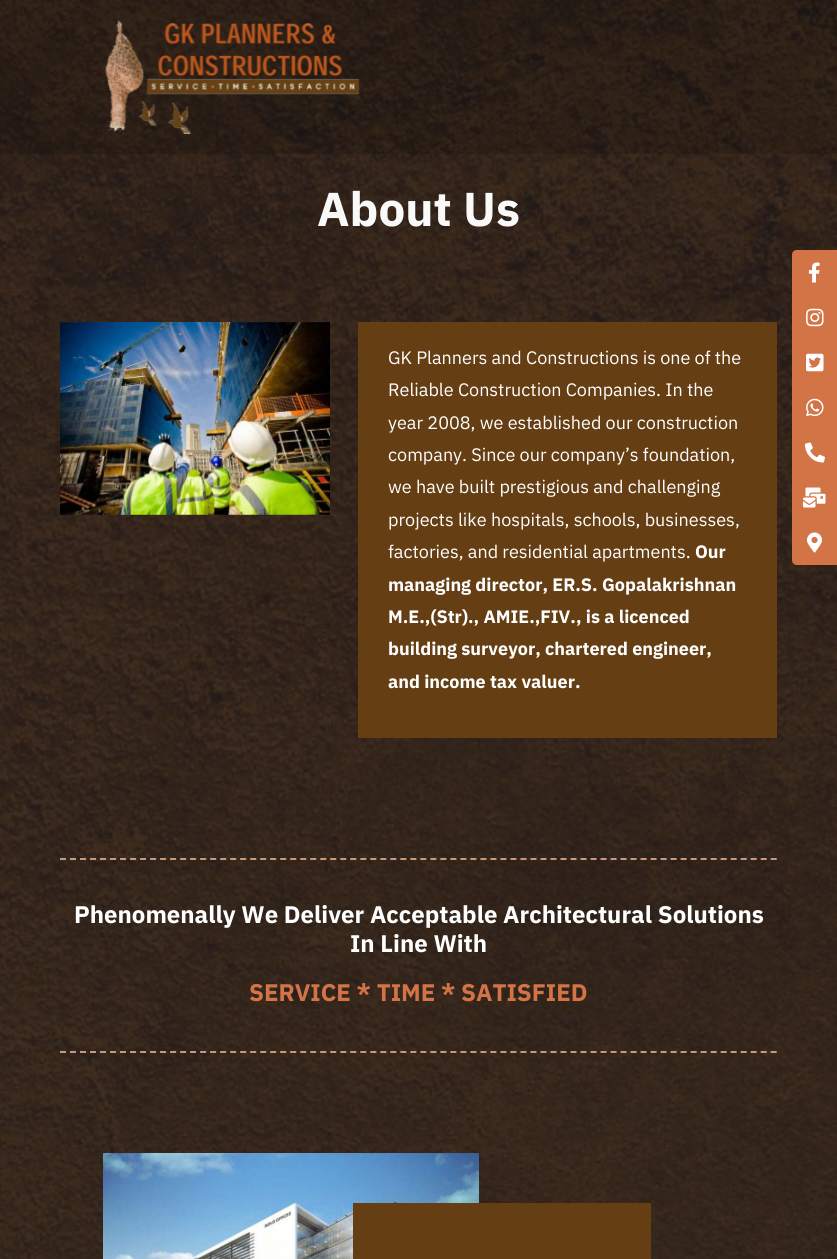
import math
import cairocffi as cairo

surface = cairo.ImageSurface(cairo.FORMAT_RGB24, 837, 1259)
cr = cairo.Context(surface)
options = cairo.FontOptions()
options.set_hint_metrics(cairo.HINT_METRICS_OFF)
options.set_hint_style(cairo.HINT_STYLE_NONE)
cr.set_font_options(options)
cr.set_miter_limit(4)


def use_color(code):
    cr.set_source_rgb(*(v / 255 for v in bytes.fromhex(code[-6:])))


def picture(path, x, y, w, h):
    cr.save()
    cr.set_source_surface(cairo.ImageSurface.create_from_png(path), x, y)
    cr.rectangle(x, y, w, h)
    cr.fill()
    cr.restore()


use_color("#ffffff")
cr.paint()
picture("img2.png", 0, 0, 837, 1259)
cr.set_source_rgba(0, 0, 0, 0.16)
cr.rectangle(0, 0, 837, 154)
cr.fill()
picture("img1.png", 105, 20, 255, 114)
cr.select_font_face("IBM Plex Sans", cairo.FONT_SLANT_NORMAL, cairo.FONT_WEIGHT_BOLD)
cr.set_font_size(47.5)
use_color("#f9f9f9")
cr.move_to(317, 226)
cr.show_text("About Us")
picture("img3.png", 60, 322, 270, 193)
use_color("#653e14")
cr.rectangle(358, 322, 419, 416)
cr.fill()
cr.select_font_face("IBM Plex Sans")
cr.set_font_size(18)
use_color("#ffffff")
cr.move_to(388, 364)
cr.show_text("GK Planners and Constructions is one of the")
cr.move_to(388, 396)
cr.show_text("Reliable Construction Companies. In the")
cr.move_to(388, 429)
cr.show_text("year 2008, we established our construction")
cr.move_to(388, 461)
cr.show_text("company. Since our company’s foundation,")
cr.move_to(388, 493)
cr.show_text("we have built prestigious and challenging")
cr.move_to(388, 526)
cr.show_text("projects like hospitals, schools, businesses,")
cr.move_to(388, 558)
cr.show_text("factories, and residential apartments.")
cr.select_font_face("IBM Plex Sans", cairo.FONT_SLANT_NORMAL, cairo.FONT_WEIGHT_BOLD)
cr.move_to(695, 558)
cr.show_text("Our")
cr.move_to(388, 591)
cr.show_text("managing director, ER.S. Gopalakrishnan")
cr.move_to(388, 623)
cr.show_text("M.E.,(Str)., AMIE.,FIV., is a licenced")
cr.move_to(388, 655)
cr.show_text("building surveyor, chartered engineer,")
cr.move_to(388, 688)
cr.show_text("and income tax valuer.")
cr.new_path()
cr.move_to(60, 859)
cr.line_to(777, 859)
use_color("#c89a7b")
cr.set_dash([6, 4.01])
cr.stroke()
cr.new_path()
cr.move_to(60, 1052)
cr.line_to(777, 1052)
cr.stroke()
cr.set_font_size(24)
use_color("#ffffff")
cr.move_to(74, 923)
cr.show_text("Phenomenally We Deliver Acceptable Architectural Solutions")
cr.move_to(350, 952)
cr.show_text("In Line With")
use_color("#d37447")
cr.move_to(249, 1001)
cr.show_text("SERVICE * TIME * SATISFIED")
picture("img4.png", 103, 1153, 376, 106)
use_color("#653e14")
cr.rectangle(353, 1203, 298, 56)
cr.fill()
use_color("#d37447")
cr.new_path()
cr.move_to(797, 250)
cr.line_to(837, 250)
cr.line_to(837, 295)
cr.line_to(792, 295)
cr.line_to(792, 255)
cr.curve_to(792, 252, 794, 250, 797, 250)
cr.close_path()
cr.fill()
picture("img5.png", 808, 262, 12, 21)
cr.rectangle(792, 295, 45, 225)
cr.fill()
picture("img6.png", 806, 308, 18, 19)
picture("img7.png", 806, 353, 18, 19)
picture("img8.png", 806, 398, 18, 19)
picture("img9.png", 805, 442, 20, 21)
picture("img10.png", 803, 487, 23, 21)
cr.new_path()
cr.move_to(792, 520)
cr.line_to(837, 520)
cr.line_to(837, 565)
cr.line_to(797, 565)
cr.curve_to(794, 565, 792, 563, 792, 560)
cr.close_path()
cr.fill()
picture("img11.png", 807, 532, 15, 21)
surface.write_to_png("result.png")
